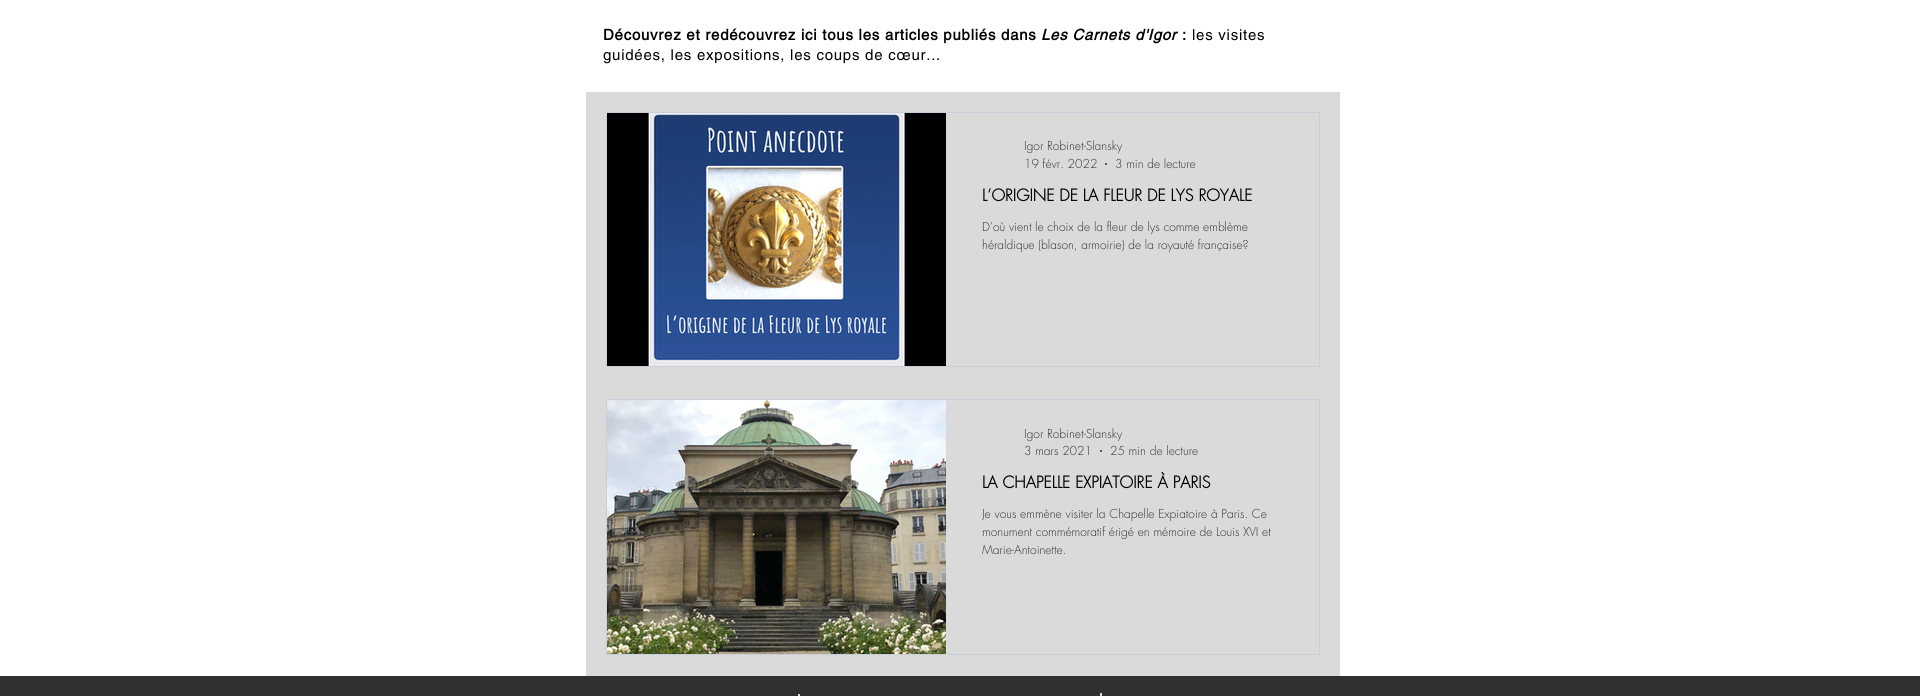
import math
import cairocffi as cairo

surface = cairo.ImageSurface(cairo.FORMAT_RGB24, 1920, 696)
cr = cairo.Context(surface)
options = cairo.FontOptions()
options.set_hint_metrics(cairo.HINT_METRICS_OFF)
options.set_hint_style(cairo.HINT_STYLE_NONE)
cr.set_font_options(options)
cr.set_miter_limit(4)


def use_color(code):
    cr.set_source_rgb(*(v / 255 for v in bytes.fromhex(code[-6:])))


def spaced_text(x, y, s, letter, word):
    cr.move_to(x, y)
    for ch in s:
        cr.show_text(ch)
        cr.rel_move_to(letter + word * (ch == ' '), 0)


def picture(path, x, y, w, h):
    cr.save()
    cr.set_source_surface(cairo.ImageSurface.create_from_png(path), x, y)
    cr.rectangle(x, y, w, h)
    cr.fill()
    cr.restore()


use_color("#ffffff")
cr.paint()
cr.select_font_face("helvetica", cairo.FONT_SLANT_NORMAL, cairo.FONT_WEIGHT_BOLD)
cr.set_font_size(15)
use_color("#000000")
spaced_text(603, 40, "Découvrez et redécouvrez ici tous les articles publiés dans", 0.75, 0)
cr.select_font_face("helvetica", cairo.FONT_SLANT_ITALIC, cairo.FONT_WEIGHT_BOLD)
spaced_text(1041, 40, "Les Carnets d'Igor", 0.75, 0)
cr.select_font_face("helvetica", cairo.FONT_SLANT_NORMAL, cairo.FONT_WEIGHT_BOLD)
spaced_text(1182, 40, ":", 0.75, 0)
cr.select_font_face("helvetica")
spaced_text(1192, 40, "les visites", 0.75, 0)
spaced_text(603, 60, "guidées, les expositions, les coups de cœur...", 0.75, 0)
use_color("#dadada")
cr.rectangle(586, 92, 754, 584)
cr.fill()
cr.rectangle(606.5, 112.5, 713, 254)
use_color("#c9cfda")
cr.set_line_width(1)
cr.stroke()
picture("img1.png", 607, 113, 339, 253)
cr.select_font_face("futura Light")
cr.set_font_size(12)
use_color("#303030")
cr.move_to(1024, 150)
cr.show_text("Igor Robinet-Slansky")
cr.move_to(1024, 168)
cr.show_text("19 févr. 2022")
cr.new_path()
cr.arc(1106, 164, 1, 0, 2 * math.pi)
cr.fill()
cr.move_to(1115, 168)
cr.show_text("3 min de lecture")
cr.select_font_face("futura", cairo.FONT_SLANT_NORMAL, cairo.FONT_WEIGHT_BOLD)
cr.set_font_size(16)
use_color("#000000")
cr.move_to(982, 201)
cr.show_text("L’ORIGINE DE LA FLEUR DE LYS ROYALE")
cr.select_font_face("futura Light")
cr.set_font_size(12)
use_color("#303030")
cr.move_to(982, 231)
cr.show_text("D’où vient le choix de la fleur de lys comme emblème")
cr.move_to(982, 249)
cr.show_text("héraldique (blason, armoirie) de la royauté française?")
cr.rectangle(606.5, 399.5, 713, 255)
use_color("#c9cfda")
cr.stroke()
picture("img2.png", 607, 400, 339, 254)
use_color("#303030")
cr.move_to(1024, 438)
cr.show_text("Igor Robinet-Slansky")
cr.move_to(1024, 455)
cr.show_text("3 mars 2021")
cr.new_path()
cr.arc(1101, 451, 1, 0, 2 * math.pi)
cr.fill()
cr.move_to(1110, 455)
cr.show_text("25 min de lecture")
cr.select_font_face("futura", cairo.FONT_SLANT_NORMAL, cairo.FONT_WEIGHT_BOLD)
cr.set_font_size(16)
use_color("#000000")
cr.move_to(982, 488)
cr.show_text("LA CHAPELLE EXPIATOIRE À PARIS")
cr.save()
cr.rectangle(982, 505, 301, 54)
cr.clip()
cr.select_font_face("futura Light")
cr.set_font_size(12)
use_color("#303030")
cr.move_to(982, 518)
cr.show_text("Je vous emmène visiter la Chapelle Expiatoire à Paris. Ce")
cr.restore()
cr.select_font_face("futura Light")
cr.set_font_size(12)
use_color("#303030")
cr.move_to(982, 536)
cr.show_text("monument commémoratif érigé en mémoire de Louis XVI et")
cr.move_to(982, 554)
cr.show_text("Marie-Antoinette.")
cr.rectangle(0, 676, 1920, 20)
cr.fill()
use_color("#dadada")
cr.rectangle(798, 694, 2, 2)
cr.fill()
cr.rectangle(1100, 693, 2, 3)
cr.fill()
surface.write_to_png("result.png")
